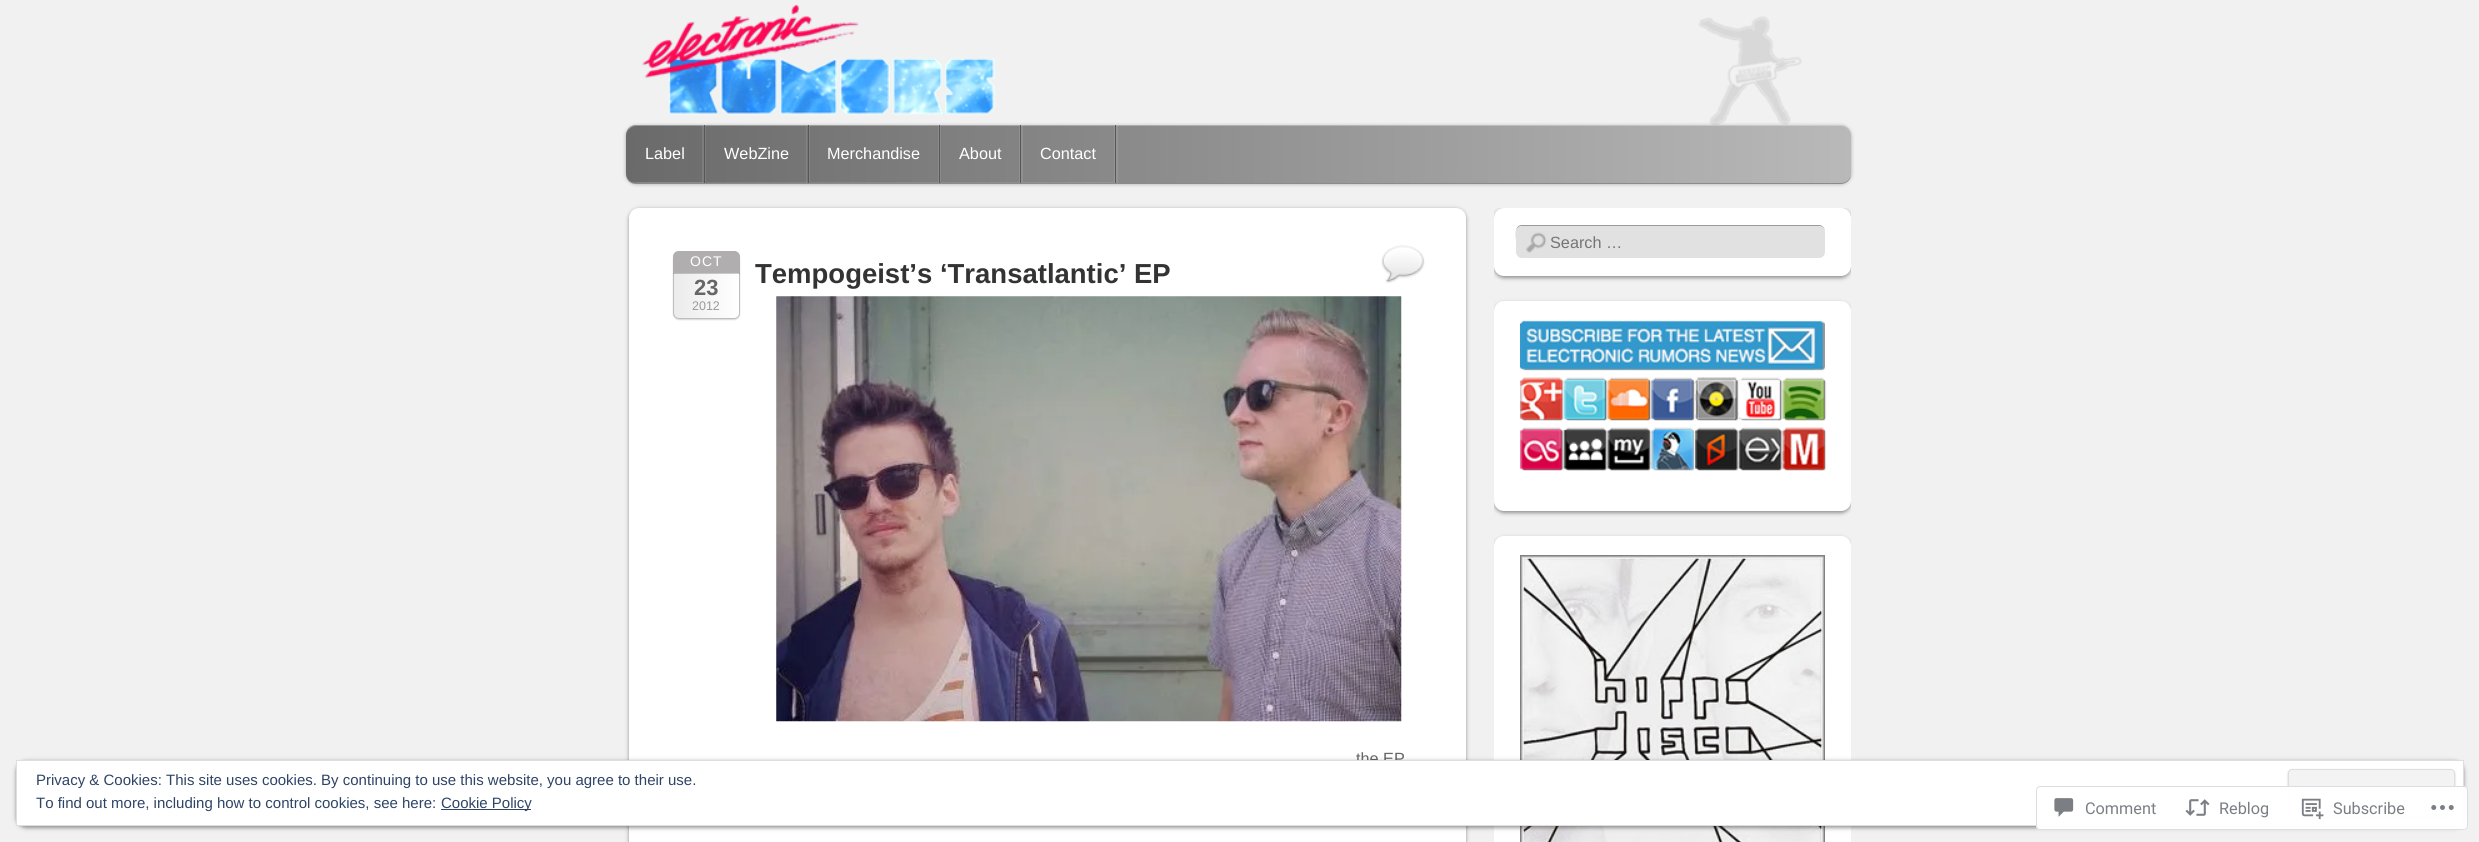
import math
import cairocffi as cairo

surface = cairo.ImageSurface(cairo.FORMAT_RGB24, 2479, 842)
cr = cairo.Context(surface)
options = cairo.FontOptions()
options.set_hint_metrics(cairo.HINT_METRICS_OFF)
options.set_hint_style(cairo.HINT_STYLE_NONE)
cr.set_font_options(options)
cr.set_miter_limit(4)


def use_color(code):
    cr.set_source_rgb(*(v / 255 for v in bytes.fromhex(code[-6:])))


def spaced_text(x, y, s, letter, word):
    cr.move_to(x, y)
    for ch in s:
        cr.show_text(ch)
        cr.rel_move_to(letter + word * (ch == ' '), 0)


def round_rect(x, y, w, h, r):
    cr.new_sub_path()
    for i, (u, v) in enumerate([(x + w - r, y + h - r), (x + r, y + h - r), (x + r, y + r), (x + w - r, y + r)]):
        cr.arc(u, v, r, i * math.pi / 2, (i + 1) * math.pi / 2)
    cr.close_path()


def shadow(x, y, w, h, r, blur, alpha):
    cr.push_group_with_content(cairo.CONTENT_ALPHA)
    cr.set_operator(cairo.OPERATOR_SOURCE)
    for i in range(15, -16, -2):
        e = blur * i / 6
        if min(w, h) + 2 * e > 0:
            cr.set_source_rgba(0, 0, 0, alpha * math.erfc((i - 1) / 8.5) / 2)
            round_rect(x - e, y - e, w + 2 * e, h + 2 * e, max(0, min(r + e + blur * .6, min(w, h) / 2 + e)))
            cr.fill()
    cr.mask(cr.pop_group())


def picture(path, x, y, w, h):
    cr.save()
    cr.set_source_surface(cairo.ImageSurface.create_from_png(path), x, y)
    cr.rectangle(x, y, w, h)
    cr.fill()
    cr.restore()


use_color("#f1f1f1")
cr.paint()
picture("img1.png", 642, 4, 1160, 121)
use_color("#000000")
shadow(626, 126, 1225, 58, 10, 2, 0.3)
cr.set_source_rgba(0, 0, 0, 0.3)
cr.new_path()
cr.move_to(626, 133)
cr.line_to(626, 136)
cr.line_to(626, 174)
cr.curve_to(626, 180, 630, 184, 636, 184)
cr.line_to(1841, 184)
cr.curve_to(1846, 184, 1851, 180, 1851, 175)
cr.curve_to(1850, 179, 1846, 182, 1841, 182)
cr.line_to(636, 182)
cr.curve_to(631, 182, 626, 178, 626, 172)
cr.close_path()
cr.fill()
gradient = cairo.LinearGradient(1851, 154, 626, 154)
gradient.add_color_stop_rgba(0, 0.725, 0.725, 0.725, 1)
gradient.add_color_stop_rgba(1, 0.416, 0.416, 0.416, 1)
cr.set_source(gradient)
round_rect(626, 125, 1225, 58, 10)
cr.fill()
cr.set_source_rgba(1, 1, 1, 0.3)
cr.new_path()
cr.move_to(636, 126)
cr.line_to(1841, 126)
cr.curve_to(1847, 126, 1851, 131, 1851, 136)
cr.curve_to(1851, 130, 1847, 125, 1841, 125)
cr.line_to(636, 125)
cr.curve_to(630, 125, 626, 130, 626, 136)
cr.curve_to(626, 131, 631, 126, 636, 126)
cr.close_path()
cr.fill()
cr.set_source_rgba(1, 1, 1, 0.1)
cr.new_path()
cr.move_to(634, 182)
cr.line_to(638, 183)
cr.line_to(706, 183)
cr.line_to(706, 125)
cr.line_to(705, 125)
cr.line_to(705, 182)
cr.close_path()
cr.fill()
cr.new_path()
cr.move_to(630, 181)
cr.curve_to(631, 182, 634, 183, 636, 183)
cr.line_to(704, 183)
cr.line_to(704, 125)
cr.line_to(702, 125)
cr.line_to(702, 182)
cr.line_to(635, 182)
cr.curve_to(633, 182, 631, 182, 630, 181)
cr.close_path()
cr.fill()
use_color("#575757")
cr.rectangle(704, 125, 1, 58)
cr.fill()
cr.select_font_face("Liberation Sans")
cr.set_font_size(16.25)
use_color("#ffffff")
cr.move_to(645, 159)
cr.show_text("Label")
cr.set_source_rgba(1, 1, 1, 0.1)
cr.new_path()
cr.move_to(706, 182)
cr.line_to(706, 183)
cr.line_to(810, 183)
cr.line_to(810, 125)
cr.line_to(809, 125)
cr.line_to(809, 182)
cr.close_path()
cr.fill()
cr.rectangle(806, 125, 1, 58)
cr.fill()
use_color("#575757")
cr.rectangle(808, 125, 1, 58)
cr.fill()
use_color("#ffffff")
cr.move_to(724, 159)
cr.show_text("WebZine")
cr.set_source_rgba(1, 1, 1, 0.1)
cr.new_path()
cr.move_to(810, 182)
cr.line_to(810, 183)
cr.line_to(941, 183)
cr.line_to(941, 125)
cr.line_to(940, 125)
cr.line_to(940, 182)
cr.close_path()
cr.fill()
cr.rectangle(938, 125, 1, 58)
cr.fill()
use_color("#575757")
cr.rectangle(939, 125, 1, 58)
cr.fill()
use_color("#ffffff")
cr.move_to(827, 159)
cr.show_text("Merchandise")
cr.set_source_rgba(1, 1, 1, 0.1)
cr.new_path()
cr.move_to(941, 182)
cr.line_to(941, 183)
cr.line_to(1023, 183)
cr.line_to(1023, 125)
cr.line_to(1021, 125)
cr.line_to(1021, 182)
cr.close_path()
cr.fill()
cr.rectangle(1019, 125, 1, 58)
cr.fill()
use_color("#575757")
cr.rectangle(1020, 125, 1, 58)
cr.fill()
use_color("#ffffff")
cr.move_to(959, 159)
cr.show_text("About")
cr.set_source_rgba(1, 1, 1, 0.1)
cr.new_path()
cr.move_to(1023, 182)
cr.line_to(1023, 183)
cr.line_to(1118, 183)
cr.line_to(1118, 125)
cr.line_to(1116, 125)
cr.line_to(1116, 182)
cr.close_path()
cr.fill()
cr.rectangle(1114, 125, 1, 58)
cr.fill()
use_color("#575757")
cr.rectangle(1115, 125, 1, 58)
cr.fill()
use_color("#ffffff")
cr.move_to(1040, 159)
cr.show_text("Contact")
cr.save()
cr.rectangle(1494, 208, 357, 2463)
cr.clip()
use_color("#000000")
shadow(1494, 209, 357, 69, 10, 2, 0.4)
cr.restore()
round_rect(1494, 208, 357, 68, 10)
cr.fill()
use_color("#999999")
cr.new_path()
cr.move_to(1522, 225)
cr.curve_to(1514, 225, 1516, 236, 1516, 240)
cr.line_to(1516, 252)
cr.line_to(1516, 232)
cr.curve_to(1516, 229, 1519, 226, 1522, 226)
cr.line_to(1819, 226)
cr.curve_to(1822, 226, 1825, 229, 1825, 232)
cr.curve_to(1825, 229, 1823, 225, 1819, 225)
cr.close_path()
cr.fill()
use_color("#e1e1e1")
round_rect(1516, 226, 309, 32, 6)
cr.fill()
picture("img2.png", 1526, 232, 21, 21)
use_color("#757575")
cr.move_to(1550, 248)
cr.show_text("Search …")
cr.save()
cr.rectangle(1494, 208, 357, 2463)
cr.clip()
use_color("#000000")
shadow(1494, 303, 357, 210, 10, 2, 0.4)
cr.restore()
use_color("#ffffff")
round_rect(1494, 301, 357, 210, 10)
cr.fill()
picture("img3.png", 1520, 320, 305, 51)
picture("img4.png", 1520, 377, 44, 44)
picture("img5.png", 1563, 377, 45, 44)
picture("img6.png", 1607, 377, 45, 44)
picture("img7.png", 1651, 377, 44, 44)
picture("img8.png", 1695, 377, 44, 44)
picture("img9.png", 1738, 377, 45, 44)
picture("img10.png", 1782, 377, 45, 44)
picture("img11.png", 1520, 427, 44, 44)
picture("img12.png", 1563, 427, 45, 44)
picture("img13.png", 1607, 427, 45, 44)
picture("img14.png", 1651, 427, 44, 44)
picture("img15.png", 1695, 427, 44, 44)
picture("img16.png", 1738, 427, 45, 44)
picture("img17.png", 1782, 427, 44, 44)
cr.save()
cr.rectangle(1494, 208, 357, 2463)
cr.clip()
use_color("#000000")
shadow(1494, 538, 357, 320, 10, 2, 0.4)
cr.restore()
round_rect(1494, 536, 357, 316, 10)
cr.fill()
picture("img18.png", 1520, 555, 305, 287)
use_color("#000000")
shadow(629, 209, 837, 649, 10, 2, 0.4)
use_color("#ffffff")
round_rect(629, 208, 837, 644, 10)
cr.fill()
use_color("#000000")
shadow(673, 253, 67, 67, 6, 0.5, 0.15)
cr.save()
round_rect(673, 251, 67, 68, 6)
cr.clip()
gradient = cairo.LinearGradient(739, 285, 674, 285)
gradient.add_color_stop_rgba(0, 1, 1, 1, 1)
gradient.add_color_stop_rgba(1, 0.925, 0.922, 0.922, 1)
cr.set_source(gradient)
cr.rectangle(674, 251, 65, 68)
cr.fill()
cr.restore()
round_rect(673.5, 251.5, 66, 67, 5.5)
use_color("#bebebe")
cr.set_line_width(1)
cr.stroke()
cr.set_source_rgba(0, 0, 0, 0.2)
cr.rectangle(673, 273, 67, 1)
cr.fill()
use_color("#b0aeae")
cr.new_path()
cr.move_to(679, 251.5)
cr.line_to(734, 251.5)
cr.curve_to(737, 251.5, 739.5, 254, 739.5, 257)
cr.line_to(739.5, 272.5)
cr.line_to(673.5, 272.5)
cr.line_to(673.5, 257)
cr.curve_to(673.5, 254, 676, 251.5, 679, 251.5)
cr.close_path()
cr.fill_preserve()
cr.stroke()
cr.set_font_size(14)
use_color("#ffffff")
spaced_text(690, 266, "OCT", 1, 0)
cr.select_font_face("Liberation Sans", cairo.FONT_SLANT_NORMAL, cairo.FONT_WEIGHT_BOLD)
cr.set_font_size(22)
use_color("#666666")
cr.move_to(694, 295)
cr.show_text("23")
cr.select_font_face("Liberation Sans")
cr.set_font_size(12.5)
use_color("#999999")
cr.move_to(692, 310)
cr.show_text("2012")
cr.select_font_face("Liberation Sans", cairo.FONT_SLANT_NORMAL, cairo.FONT_WEIGHT_BOLD)
cr.set_font_size(27.5)
use_color("#333333")
cr.move_to(755, 283)
cr.show_text("Tempogeist’s ‘Transatlantic’ EP")
picture("img19.png", 1381, 245, 44, 38)
picture("img20.png", 776, 296, 626, 426)
cr.select_font_face("Liberation Sans")
cr.set_font_size(16.25)
use_color("#666666")
cr.move_to(1356, 764)
cr.show_text("the EP")
use_color("#000000")
shadow(16, 761, 2448, 67, 10, 2, 0.4)
use_color("#ffffff")
cr.rectangle(16.5, 760.5, 2447, 65)
cr.fill_preserve()
use_color("#dedede")
cr.stroke()
cr.set_font_size(15)
use_color("#2e4467")
cr.move_to(36, 785)
cr.show_text("Privacy & Cookies: This site uses cookies. By continuing to use this website, you agree to their use.")
use_color("#000000")
shadow(2288, 770, 167, 49, 4, 1, 0.2)
use_color("#f3f3f3")
round_rect(2288.5, 769.5, 166, 48, 3.5)
cr.fill_preserve()
use_color("#dedede")
cr.stroke()
use_color("#2e4467")
cr.move_to(36, 808)
cr.show_text("To find out more, including how to control cookies, see here:")
cr.rectangle(441, 809, 90, 1)
cr.fill()
cr.move_to(441, 808)
cr.show_text("Cookie Policy")
cr.set_source_rgba(1, 1, 1, 0.98)
round_rect(2036, 786, 432, 44, 4)
cr.fill()
round_rect(2036.5, 786.5, 431, 43, 3.5)
cr.set_source_rgba(0.863, 0.863, 0.871, 0.98)
cr.stroke()
picture("img21.png", 2054, 798, 20, 19)
cr.select_font_face("Roboto")
cr.set_font_size(16.25)
use_color("#7b7f85")
cr.move_to(2085, 814)
cr.show_text("Comment")
picture("img22.png", 2185, 799, 25, 17)
cr.move_to(2219, 814)
cr.show_text("Reblog")
picture("img23.png", 2301, 798, 23, 22)
cr.move_to(2333, 814)
cr.show_text("Subscribe")
picture("img24.png", 2431, 805, 23, 5)
surface.write_to_png("result.png")
